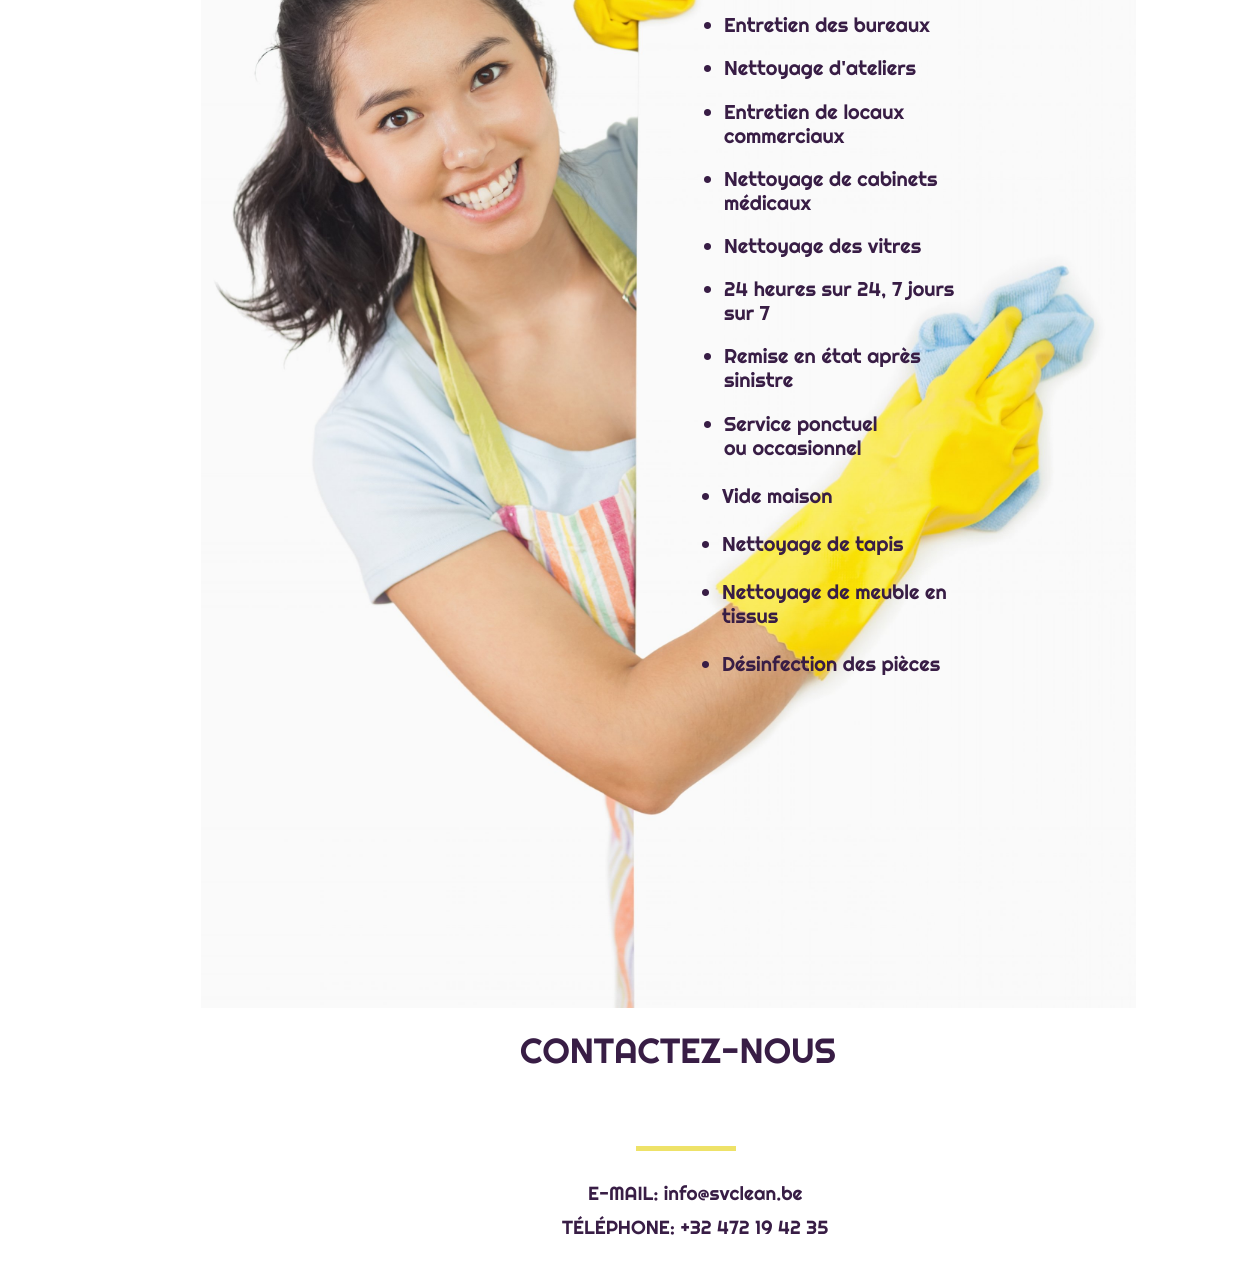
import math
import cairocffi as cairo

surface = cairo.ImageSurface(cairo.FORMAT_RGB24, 1243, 1261)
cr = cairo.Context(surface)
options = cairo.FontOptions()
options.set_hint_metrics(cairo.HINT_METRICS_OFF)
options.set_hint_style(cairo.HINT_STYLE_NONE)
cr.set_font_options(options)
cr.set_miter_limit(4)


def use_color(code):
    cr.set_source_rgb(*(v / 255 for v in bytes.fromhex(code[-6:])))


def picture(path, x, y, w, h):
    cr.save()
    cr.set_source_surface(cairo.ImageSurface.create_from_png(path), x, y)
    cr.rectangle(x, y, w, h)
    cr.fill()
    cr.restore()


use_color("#ffffff")
cr.paint()
picture("img1.png", 201, 0, 935, 1008)
use_color("#381d45")
cr.arc(707.5, 25.5, 3.5, 0, 2 * math.pi)
cr.fill()
cr.select_font_face("Righteous")
cr.set_font_size(20)
cr.move_to(724, 32)
cr.show_text("Entretien des bureaux")
cr.new_path()
cr.arc(707.5, 68.5, 3.5, 0, 2 * math.pi)
cr.fill()
cr.move_to(724, 75)
cr.show_text("Nettoyage d'ateliers")
cr.new_path()
cr.arc(707.5, 112.5, 3.5, 0, 2 * math.pi)
cr.fill()
cr.move_to(724, 119)
cr.show_text("Entretien de locaux")
cr.move_to(724, 143)
cr.show_text("commerciaux")
cr.new_path()
cr.arc(707.5, 179.5, 3.5, 0, 2 * math.pi)
cr.fill()
cr.move_to(724, 186)
cr.show_text("Nettoyage de cabinets")
cr.move_to(724, 210)
cr.show_text("médicaux")
cr.new_path()
cr.arc(707.5, 246.5, 3.5, 0, 2 * math.pi)
cr.fill()
cr.move_to(724, 253)
cr.show_text("Nettoyage des vitres")
cr.new_path()
cr.arc(707.5, 289.5, 3.5, 0, 2 * math.pi)
cr.fill()
cr.move_to(724, 296)
cr.show_text("24 heures sur 24, 7 jours")
cr.move_to(724, 320)
cr.show_text("sur 7")
cr.new_path()
cr.arc(707.5, 356.5, 3.5, 0, 2 * math.pi)
cr.fill()
cr.move_to(724, 363)
cr.show_text("Remise en état après")
cr.move_to(724, 387)
cr.show_text("sinistre")
cr.new_path()
cr.arc(707.5, 424.5, 3.5, 0, 2 * math.pi)
cr.fill()
cr.move_to(724, 431)
cr.show_text("Service ponctuel")
cr.move_to(724, 455)
cr.show_text("ou occasionnel")
cr.new_path()
cr.arc(705.5, 496.5, 3.5, 0, 2 * math.pi)
cr.fill()
cr.move_to(722, 503)
cr.show_text("Vide maison")
cr.new_path()
cr.arc(705.5, 544.5, 3.5, 0, 2 * math.pi)
cr.fill()
cr.move_to(722, 551)
cr.show_text("Nettoyage de tapis")
cr.new_path()
cr.arc(705.5, 592.5, 3.5, 0, 2 * math.pi)
cr.fill()
cr.move_to(722, 599)
cr.show_text("Nettoyage de meuble en")
cr.move_to(722, 623)
cr.show_text("tissus")
cr.new_path()
cr.arc(705.5, 664.5, 3.5, 0, 2 * math.pi)
cr.fill()
cr.move_to(722, 671)
cr.show_text("Désinfection des pièces")
cr.set_font_size(35)
cr.move_to(520, 1063)
cr.show_text("CONTACTEZ-NOUS")
use_color("#eee268")
cr.rectangle(636, 1146, 100, 5)
cr.fill()
cr.set_font_size(19)
use_color("#381d45")
cr.move_to(588, 1200)
cr.show_text("E-MAIL: info@svclean.be")
cr.move_to(562, 1234)
cr.show_text("TÉLÉPHONE: +32 472 19 42 35")
surface.write_to_png("result.png")
